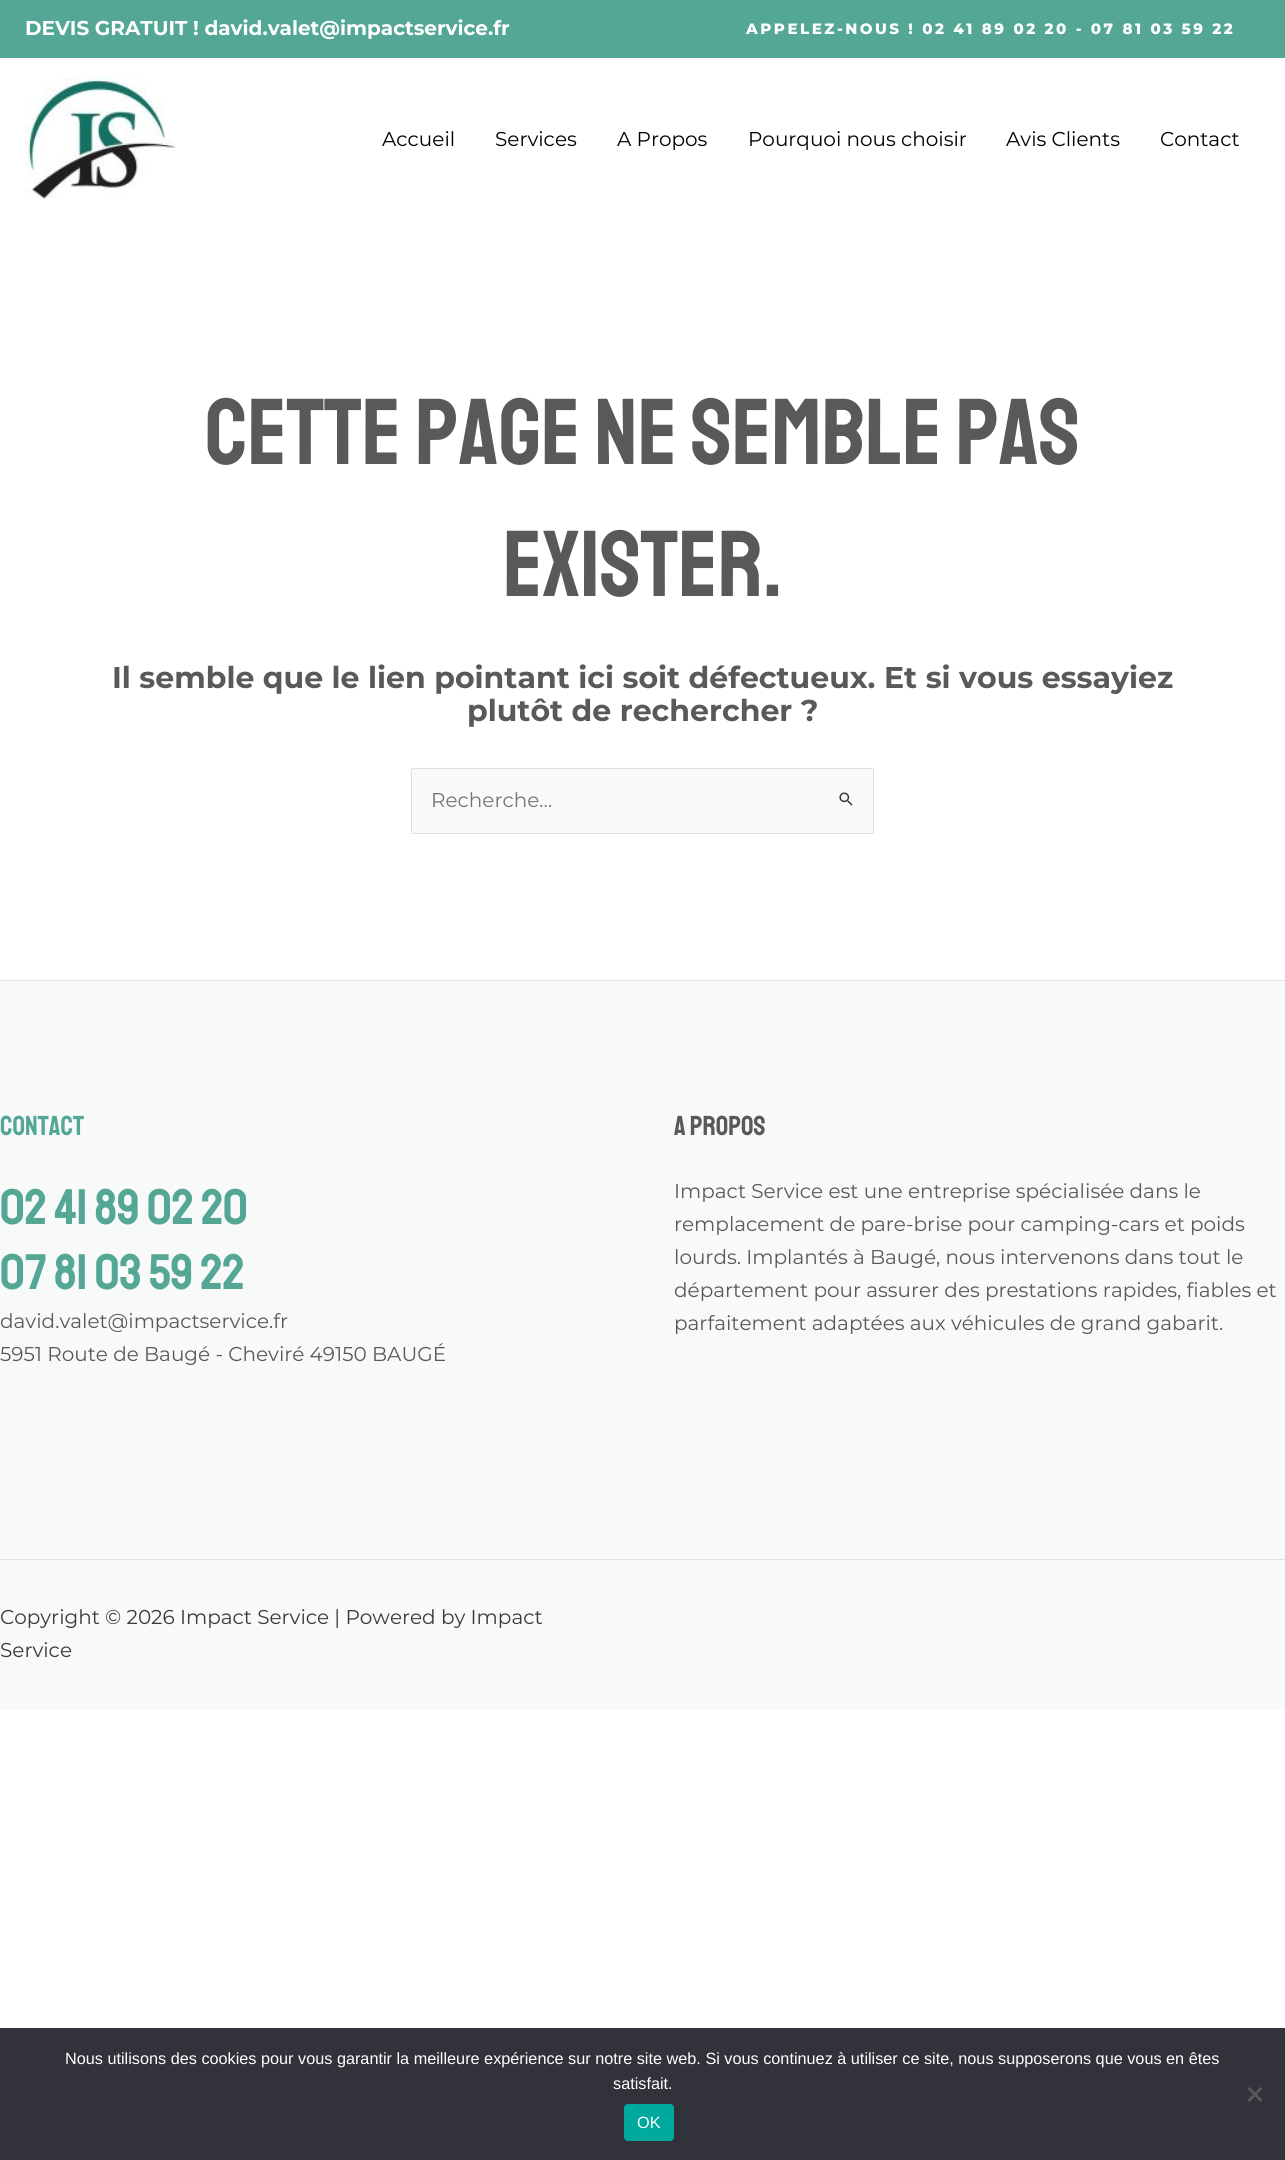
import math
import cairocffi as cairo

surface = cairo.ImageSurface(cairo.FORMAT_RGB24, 1285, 2160)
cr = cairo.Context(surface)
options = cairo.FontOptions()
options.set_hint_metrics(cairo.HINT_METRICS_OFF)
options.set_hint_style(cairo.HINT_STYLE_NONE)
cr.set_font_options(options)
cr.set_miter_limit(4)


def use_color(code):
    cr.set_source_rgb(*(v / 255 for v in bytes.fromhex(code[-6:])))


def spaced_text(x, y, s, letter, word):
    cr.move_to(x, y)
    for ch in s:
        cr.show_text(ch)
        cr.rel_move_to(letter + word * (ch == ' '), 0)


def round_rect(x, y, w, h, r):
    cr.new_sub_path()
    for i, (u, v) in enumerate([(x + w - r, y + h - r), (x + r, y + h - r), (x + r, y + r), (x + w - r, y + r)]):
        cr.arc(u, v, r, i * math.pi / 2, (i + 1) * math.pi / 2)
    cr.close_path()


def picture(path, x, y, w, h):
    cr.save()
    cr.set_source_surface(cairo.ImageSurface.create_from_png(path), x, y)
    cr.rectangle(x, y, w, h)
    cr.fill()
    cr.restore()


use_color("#ffffff")
cr.paint()
use_color("#54a795")
cr.rectangle(0, 0, 1285, 58)
cr.fill()
cr.select_font_face("Montserrat", cairo.FONT_SLANT_NORMAL, cairo.FONT_WEIGHT_BOLD)
cr.set_font_size(20)
use_color("#ffffff")
cr.move_to(25, 35)
cr.show_text("DEVIS GRATUIT ! david.valet@impactservice.fr")
cr.select_font_face("Montserrat ExtraBold")
cr.set_font_size(15)
spaced_text(746, 34, "APPELEZ-NOUS ! 02 41 89 02 20 - 07 81 03 59 22", 2.5, 0)
picture("img1.png", 25, 77, 150, 123)
cr.select_font_face("Montserrat")
cr.set_font_size(20)
use_color("#000000")
cr.move_to(382, 146)
cr.show_text("Accueil")
cr.move_to(495, 146)
cr.show_text("Services")
cr.move_to(617, 146)
cr.show_text("A Propos")
cr.move_to(748, 146)
cr.show_text("Pourquoi nous choisir")
cr.move_to(1006, 146)
cr.show_text("Avis Clients")
cr.move_to(1160, 146)
cr.show_text("Contact")
cr.select_font_face("Staatliches")
cr.set_font_size(93.75)
use_color("#595959")
cr.move_to(205, 464)
cr.show_text("Cette page ne semble pas")
cr.move_to(503, 596)
cr.show_text("exister.")
cr.select_font_face("Montserrat", cairo.FONT_SLANT_NORMAL, cairo.FONT_WEIGHT_BOLD)
cr.set_font_size(30)
cr.move_to(112, 688)
cr.show_text("Il semble que le lien pointant ici soit défectueux. Et si vous essayiez")
cr.move_to(467, 721)
cr.show_text("plutôt de rechercher ?")
use_color("#fafafa")
round_rect(411.5, 768.5, 462, 65, 2)
cr.fill_preserve()
use_color("#dddddd")
cr.set_line_width(1)
cr.stroke()
cr.select_font_face("Montserrat")
cr.set_font_size(20)
use_color("#757575")
cr.move_to(431, 807)
cr.show_text("Recherche…")
picture("img2.png", 839, 792, 14, 14)
use_color("#f8f9f9")
cr.rectangle(0, 981, 1285, 729)
cr.fill()
use_color("#e6e6e6")
cr.rectangle(0, 980, 1285, 1)
cr.fill()
cr.select_font_face("Staatliches")
cr.set_font_size(27.5)
use_color("#54a795")
cr.move_to(0, 1135)
cr.show_text("Contact")
cr.set_font_size(50)
cr.move_to(0, 1224)
cr.show_text("02 41 89 02 20")
cr.move_to(0, 1289)
cr.show_text("07 81 03 59 22")
cr.select_font_face("Montserrat")
cr.set_font_size(20)
use_color("#595959")
cr.move_to(0, 1328)
cr.show_text("david.valet@impactservice.fr")
cr.move_to(0, 1361)
cr.show_text("5951 Route de Baugé - Cheviré 49150 BAUGÉ")
cr.select_font_face("Staatliches")
cr.set_font_size(27.5)
cr.move_to(674, 1135)
cr.show_text("A Propos")
cr.select_font_face("Montserrat")
cr.set_font_size(20)
cr.move_to(674, 1198)
cr.show_text("Impact Service est une entreprise spécialisée dans le")
cr.move_to(674, 1231)
cr.show_text("remplacement de pare-brise pour camping-cars et poids")
cr.move_to(674, 1264)
cr.show_text("lourds. Implantés à Baugé, nous intervenons dans tout le")
cr.move_to(674, 1297)
cr.show_text("département pour assurer des prestations rapides, fiables et")
cr.move_to(674, 1330)
cr.show_text("parfaitement adaptées aux véhicules de grand gabarit.")
use_color("#dfe0e0")
cr.rectangle(0, 1559, 1285, 1)
cr.fill()
use_color("#3a3a3a")
cr.move_to(0, 1624)
cr.show_text("Copyright © 2026 Impact Service | Powered by Impact")
cr.move_to(0, 1657)
cr.show_text("Service")
use_color("#32323a")
cr.rectangle(0, 2028, 1285, 132)
cr.fill()
cr.select_font_face("Liberation Sans")
cr.set_font_size(16.25)
use_color("#ffffff")
cr.move_to(65, 2064)
cr.show_text("Nous utilisons des cookies pour vous garantir la meilleure expérience sur notre site web. Si vous continuez à utiliser ce site, nous supposerons que vous en êtes")
cr.move_to(613, 2089)
cr.show_text("satisfait.")
use_color("#59595d")
cr.new_path()
cr.move_to(1260.5, 2087)
cr.line_to(1262.5, 2088.5)
cr.line_to(1249.5, 2102)
cr.line_to(1247.5, 2100)
cr.close_path()
cr.fill()
cr.new_path()
cr.move_to(1247.5, 2088.5)
cr.line_to(1249.5, 2087)
cr.line_to(1262.5, 2100)
cr.line_to(1260.5, 2102)
cr.close_path()
cr.fill()
use_color("#00a99d")
round_rect(624, 2104, 50, 37, 4)
cr.fill()
use_color("#ffffff")
cr.move_to(637, 2128)
cr.show_text("OK")
surface.write_to_png("result.png")
